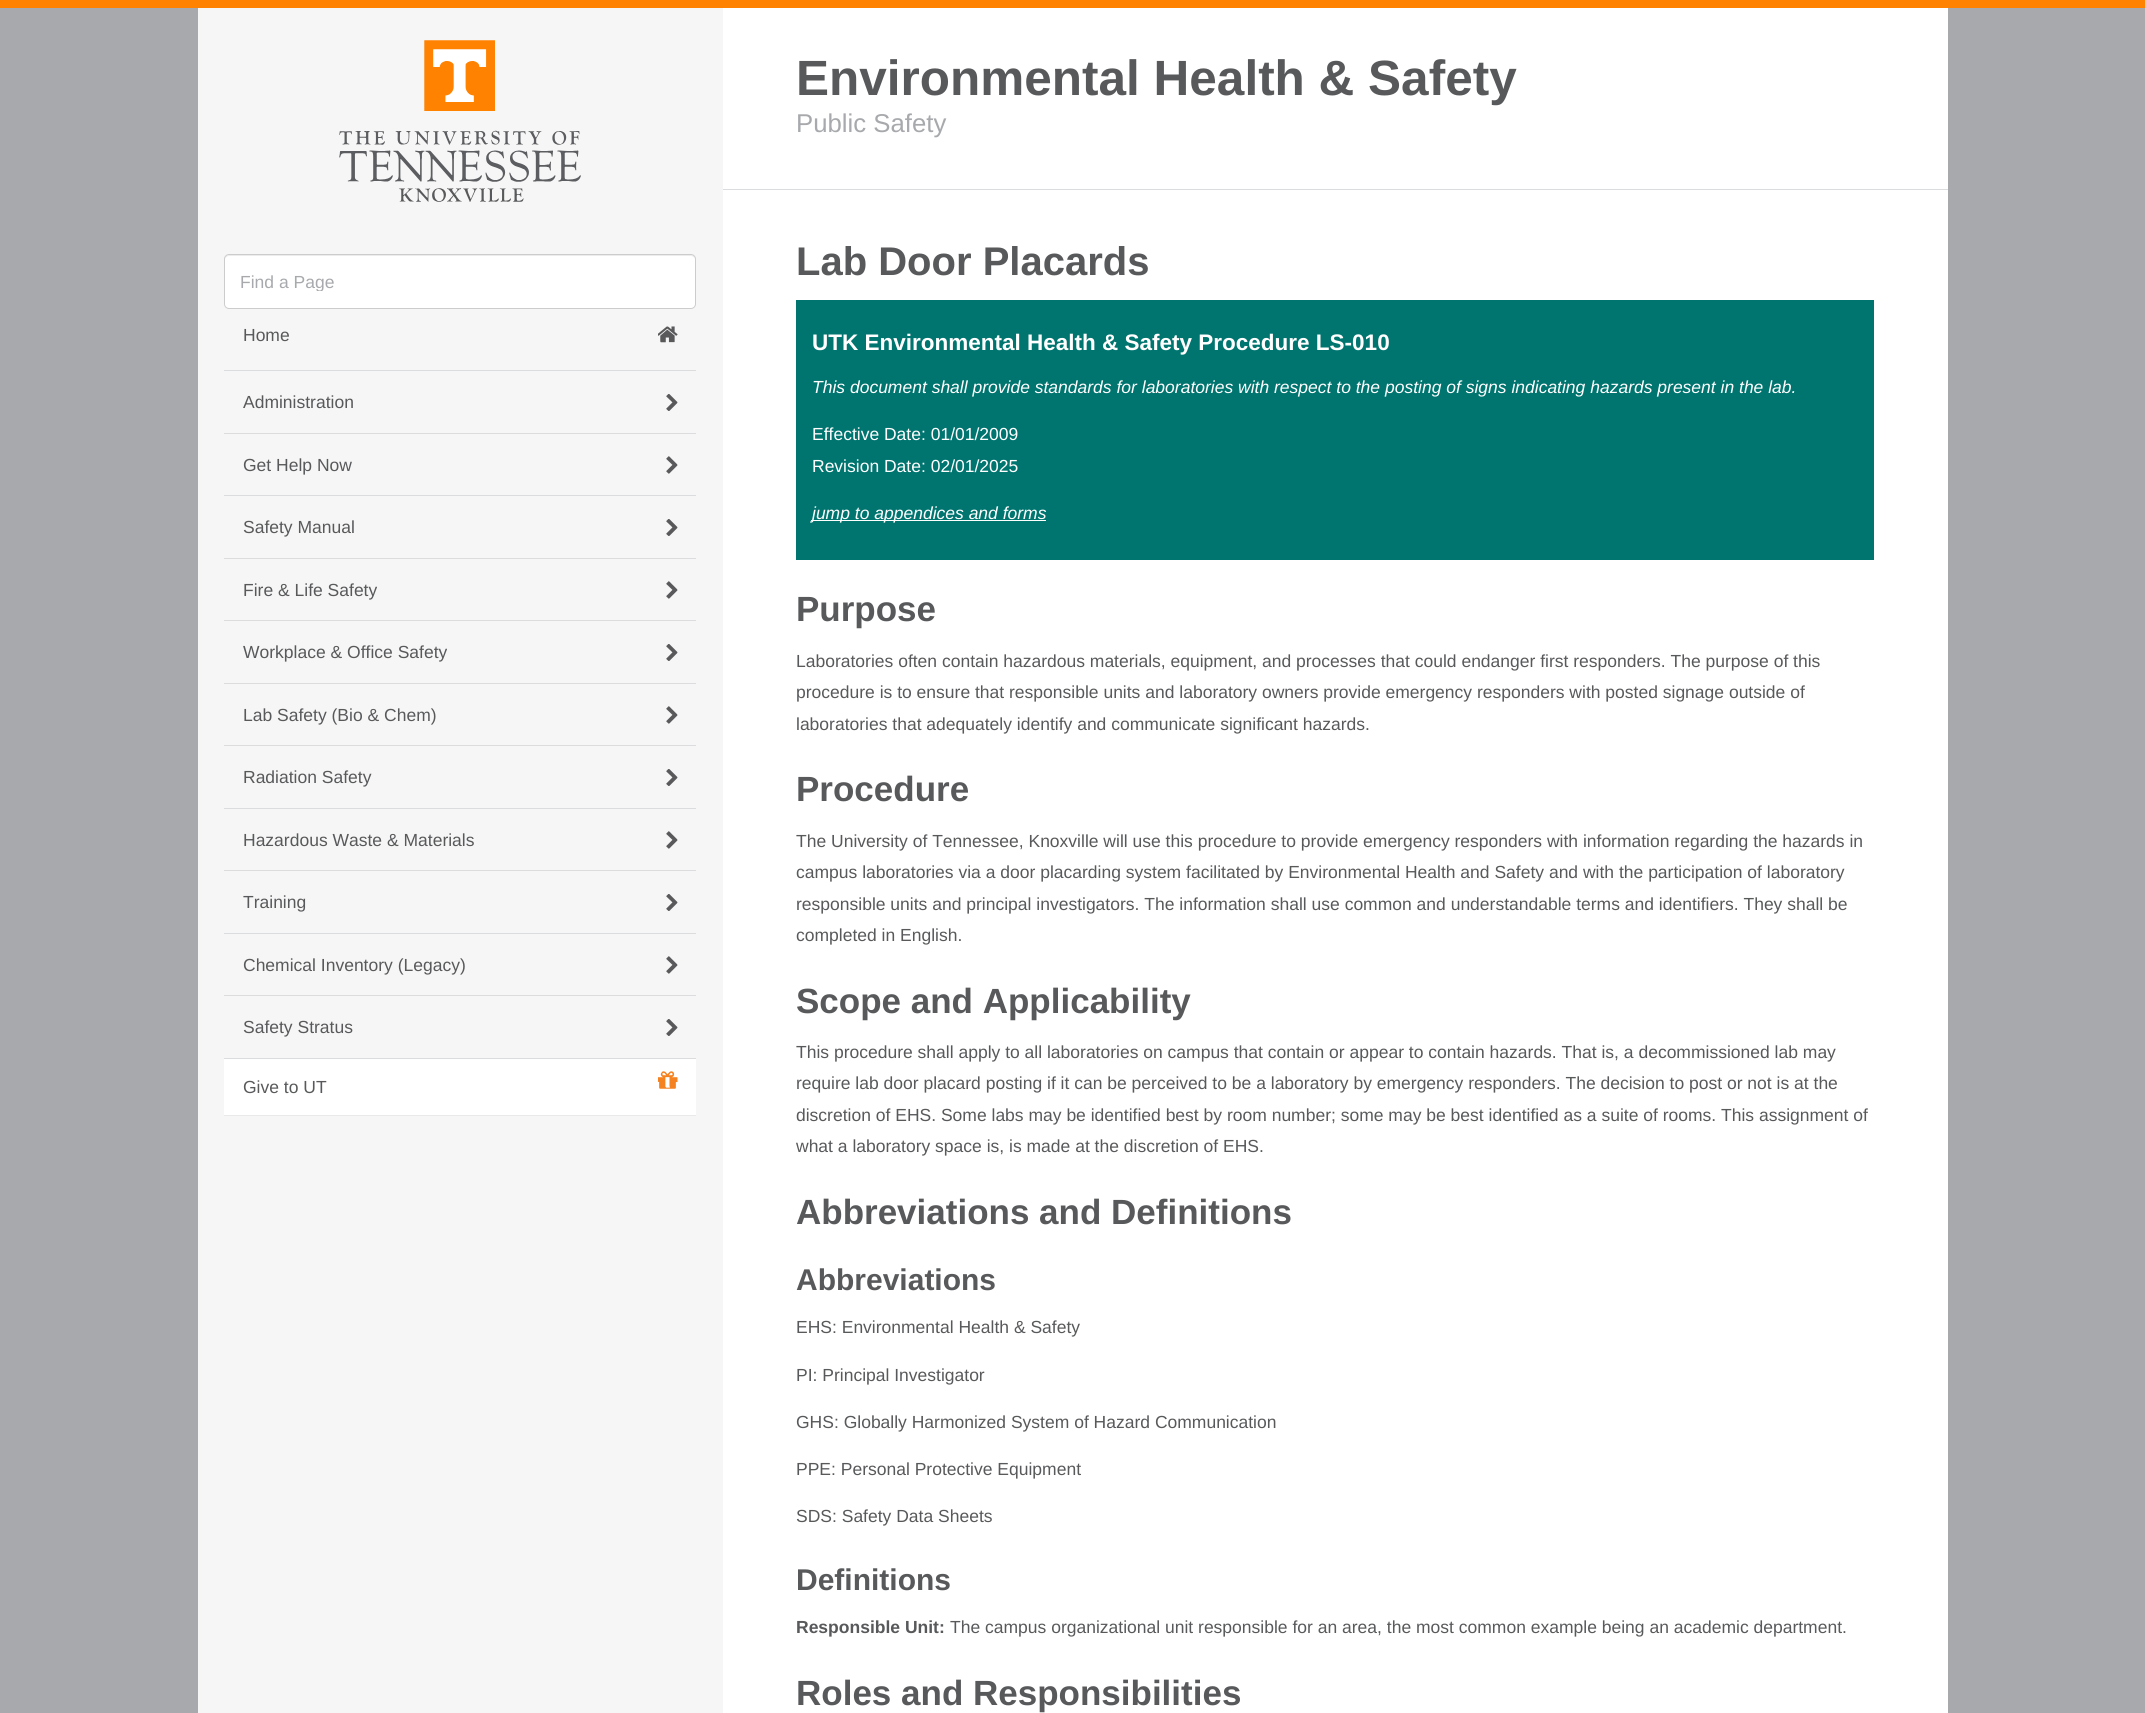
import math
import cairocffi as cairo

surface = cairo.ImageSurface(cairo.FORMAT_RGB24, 2145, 1713)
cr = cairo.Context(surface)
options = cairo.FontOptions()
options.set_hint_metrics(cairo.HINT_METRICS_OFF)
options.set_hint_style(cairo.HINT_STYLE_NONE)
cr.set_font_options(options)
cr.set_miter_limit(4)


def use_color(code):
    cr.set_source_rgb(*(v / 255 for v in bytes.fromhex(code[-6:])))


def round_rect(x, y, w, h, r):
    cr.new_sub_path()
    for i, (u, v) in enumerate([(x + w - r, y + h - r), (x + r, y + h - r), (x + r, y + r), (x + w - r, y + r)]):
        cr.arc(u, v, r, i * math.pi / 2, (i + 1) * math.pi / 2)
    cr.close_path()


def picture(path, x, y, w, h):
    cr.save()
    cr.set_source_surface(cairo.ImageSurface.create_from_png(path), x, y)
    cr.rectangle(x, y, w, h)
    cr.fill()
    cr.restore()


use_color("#a7a9ac")
cr.paint()
use_color("#ff8200")
cr.rectangle(0, 0, 2145, 8)
cr.fill()
use_color("#f6f6f6")
cr.rectangle(198, 8, 525, 1705)
cr.fill()
picture("img1.png", 339, 40, 242, 162)
use_color("#ffffff")
round_rect(224, 254, 472, 55, 5)
cr.fill()
use_color("#ececec")
cr.new_path()
cr.move_to(229, 256)
cr.line_to(691, 256)
cr.curve_to(693, 256, 695, 258, 695, 260)
cr.curve_to(695, 257, 694, 255, 691, 255)
cr.line_to(229, 255)
cr.curve_to(226, 255, 225, 257, 225, 260)
cr.curve_to(225, 258, 227, 256, 229, 256)
cr.close_path()
cr.fill()
round_rect(224.5, 254.5, 471, 54, 4.5)
use_color("#cccccc")
cr.set_line_width(1)
cr.stroke()
cr.save()
cr.rectangle(240, 271, 440, 20)
cr.clip()
cr.select_font_face("Liberation Sans")
cr.set_font_size(17.5)
use_color("#a7a9ac")
cr.move_to(240, 288)
cr.show_text("Find a Page")
cr.restore()
use_color("#dbdcde")
cr.rectangle(224, 370, 472, 1)
cr.fill()
cr.select_font_face("Liberation Sans")
cr.set_font_size(17.5)
use_color("#58595b")
cr.move_to(243, 341)
cr.show_text("Home")
picture("img2.png", 658, 326, 20, 17)
use_color("#dbdcde")
cr.rectangle(224, 433, 472, 1)
cr.fill()
use_color("#58595b")
cr.move_to(243, 408)
cr.show_text("Administration")
picture("img3.png", 666, 394, 12, 17)
use_color("#dbdcde")
cr.rectangle(224, 495, 472, 1)
cr.fill()
use_color("#58595b")
cr.move_to(243, 471)
cr.show_text("Get Help Now")
picture("img4.png", 666, 456, 12, 18)
use_color("#dbdcde")
cr.rectangle(224, 558, 472, 1)
cr.fill()
use_color("#58595b")
cr.move_to(243, 533)
cr.show_text("Safety Manual")
picture("img3.png", 666, 519, 12, 17)
use_color("#dbdcde")
cr.rectangle(224, 620, 472, 1)
cr.fill()
use_color("#58595b")
cr.move_to(243, 596)
cr.show_text("Fire & Life Safety")
picture("img4.png", 666, 581, 12, 18)
use_color("#dbdcde")
cr.rectangle(224, 683, 472, 1)
cr.fill()
use_color("#58595b")
cr.move_to(243, 658)
cr.show_text("Workplace & Office Safety")
picture("img3.png", 666, 644, 12, 17)
use_color("#dbdcde")
cr.rectangle(224, 745, 472, 1)
cr.fill()
use_color("#58595b")
cr.move_to(243, 721)
cr.show_text("Lab Safety (Bio & Chem)")
picture("img4.png", 666, 706, 12, 18)
use_color("#dbdcde")
cr.rectangle(224, 808, 472, 1)
cr.fill()
use_color("#58595b")
cr.move_to(243, 783)
cr.show_text("Radiation Safety")
picture("img3.png", 666, 769, 12, 17)
use_color("#dbdcde")
cr.rectangle(224, 870, 472, 1)
cr.fill()
use_color("#58595b")
cr.move_to(243, 846)
cr.show_text("Hazardous Waste & Materials")
picture("img4.png", 666, 831, 12, 18)
use_color("#dbdcde")
cr.rectangle(224, 933, 472, 1)
cr.fill()
use_color("#58595b")
cr.move_to(243, 908)
cr.show_text("Training")
picture("img3.png", 666, 894, 12, 17)
use_color("#dbdcde")
cr.rectangle(224, 995, 472, 1)
cr.fill()
use_color("#58595b")
cr.move_to(243, 971)
cr.show_text("Chemical Inventory (Legacy)")
picture("img4.png", 666, 956, 12, 18)
use_color("#dbdcde")
cr.rectangle(224, 1058, 472, 1)
cr.fill()
use_color("#58595b")
cr.move_to(243, 1033)
cr.show_text("Safety Stratus")
picture("img3.png", 666, 1019, 12, 17)
use_color("#ffffff")
cr.rectangle(224, 1059, 472, 56)
cr.fill()
use_color("#e9e9ea")
cr.rectangle(224, 1115, 472, 1)
cr.fill()
use_color("#58595b")
cr.move_to(243, 1093)
cr.show_text("Give to UT")
picture("img5.png", 658, 1071, 20, 18)
use_color("#ffffff")
cr.rectangle(723, 8, 1225, 1705)
cr.fill()
use_color("#dbdcde")
cr.rectangle(723, 189, 1225, 1)
cr.fill()
cr.select_font_face("Liberation Sans", cairo.FONT_SLANT_NORMAL, cairo.FONT_WEIGHT_BOLD)
cr.set_font_size(49.5)
use_color("#58595b")
cr.move_to(796, 95)
cr.show_text("Environmental Health & Safety")
cr.select_font_face("Liberation Sans")
cr.set_font_size(25.75)
use_color("#a7a9ac")
cr.move_to(796, 132)
cr.show_text("Public Safety")
cr.select_font_face("Liberation Sans", cairo.FONT_SLANT_NORMAL, cairo.FONT_WEIGHT_BOLD)
cr.set_font_size(40)
use_color("#58595b")
cr.move_to(796, 275)
cr.show_text("Lab Door Placards")
use_color("#00746f")
cr.rectangle(796, 300, 1078, 260)
cr.fill()
cr.set_font_size(22.5)
use_color("#ffffff")
cr.move_to(812, 350)
cr.show_text("UTK Environmental Health & Safety Procedure LS-010")
cr.select_font_face("Liberation Sans", cairo.FONT_SLANT_ITALIC)
cr.set_font_size(17.5)
cr.move_to(812, 393)
cr.show_text("This document shall provide standards for laboratories with respect to the posting of signs indicating hazards present in the lab.")
cr.select_font_face("Liberation Sans")
cr.move_to(812, 440)
cr.show_text("Effective Date: 01/01/2009")
cr.move_to(812, 472)
cr.show_text("Revision Date: 02/01/2025")
cr.rectangle(811, 520, 235, 1)
cr.fill()
cr.select_font_face("Liberation Sans", cairo.FONT_SLANT_ITALIC)
cr.move_to(812, 519)
cr.show_text("jump to appendices and forms")
cr.select_font_face("Liberation Sans", cairo.FONT_SLANT_NORMAL, cairo.FONT_WEIGHT_BOLD)
cr.set_font_size(35)
use_color("#58595b")
cr.move_to(796, 621)
cr.show_text("Purpose")
cr.select_font_face("Liberation Sans")
cr.set_font_size(17.5)
cr.move_to(796, 667)
cr.show_text("Laboratories often contain hazardous materials, equipment, and processes that could endanger first responders. The purpose of this")
cr.move_to(796, 698)
cr.show_text("procedure is to ensure that responsible units and laboratory owners provide emergency responders with posted signage outside of")
cr.move_to(796, 730)
cr.show_text("laboratories that adequately identify and communicate significant hazards.")
cr.select_font_face("Liberation Sans", cairo.FONT_SLANT_NORMAL, cairo.FONT_WEIGHT_BOLD)
cr.set_font_size(35)
cr.move_to(796, 801)
cr.show_text("Procedure")
cr.select_font_face("Liberation Sans")
cr.set_font_size(17.5)
cr.move_to(796, 847)
cr.show_text("The University of Tennessee, Knoxville will use this procedure to provide emergency responders with information regarding the hazards in")
cr.move_to(796, 878)
cr.show_text("campus laboratories via a door placarding system facilitated by Environmental Health and Safety and with the participation of laboratory")
cr.move_to(796, 910)
cr.show_text("responsible units and principal investigators. The information shall use common and understandable terms and identifiers. They shall be")
cr.move_to(796, 941)
cr.show_text("completed in English.")
cr.select_font_face("Liberation Sans", cairo.FONT_SLANT_NORMAL, cairo.FONT_WEIGHT_BOLD)
cr.set_font_size(35)
cr.move_to(796, 1013)
cr.show_text("Scope and Applicability")
cr.select_font_face("Liberation Sans")
cr.set_font_size(17.5)
cr.move_to(796, 1058)
cr.show_text("This procedure shall apply to all laboratories on campus that contain or appear to contain hazards. That is, a decommissioned lab may")
cr.move_to(796, 1089)
cr.show_text("require lab door placard posting if it can be perceived to be a laboratory by emergency responders. The decision to post or not is at the")
cr.move_to(796, 1121)
cr.show_text("discretion of EHS. Some labs may be identified best by room number; some may be best identified as a suite of rooms. This assignment of")
cr.move_to(796, 1152)
cr.show_text("what a laboratory space is, is made at the discretion of EHS.")
cr.select_font_face("Liberation Sans", cairo.FONT_SLANT_NORMAL, cairo.FONT_WEIGHT_BOLD)
cr.set_font_size(35)
cr.move_to(796, 1224)
cr.show_text("Abbreviations and Definitions")
cr.set_font_size(30)
cr.move_to(796, 1290)
cr.show_text("Abbreviations")
cr.select_font_face("Liberation Sans")
cr.set_font_size(17.5)
cr.move_to(796, 1333)
cr.show_text("EHS: Environmental Health & Safety")
cr.move_to(796, 1381)
cr.show_text("PI: Principal Investigator")
cr.move_to(796, 1428)
cr.show_text("GHS: Globally Harmonized System of Hazard Communication")
cr.move_to(796, 1475)
cr.show_text("PPE: Personal Protective Equipment")
cr.move_to(796, 1522)
cr.show_text("SDS: Safety Data Sheets")
cr.select_font_face("Liberation Sans", cairo.FONT_SLANT_NORMAL, cairo.FONT_WEIGHT_BOLD)
cr.set_font_size(30)
cr.move_to(796, 1590)
cr.show_text("Definitions")
cr.set_font_size(17.5)
cr.move_to(796, 1633)
cr.show_text("Responsible Unit:")
cr.select_font_face("Liberation Sans")
cr.move_to(950, 1633)
cr.show_text("The campus organizational unit responsible for an area, the most common example being an academic department.")
cr.select_font_face("Liberation Sans", cairo.FONT_SLANT_NORMAL, cairo.FONT_WEIGHT_BOLD)
cr.set_font_size(35)
cr.move_to(796, 1705)
cr.show_text("Roles and Responsibilities")
surface.write_to_png("result.png")
